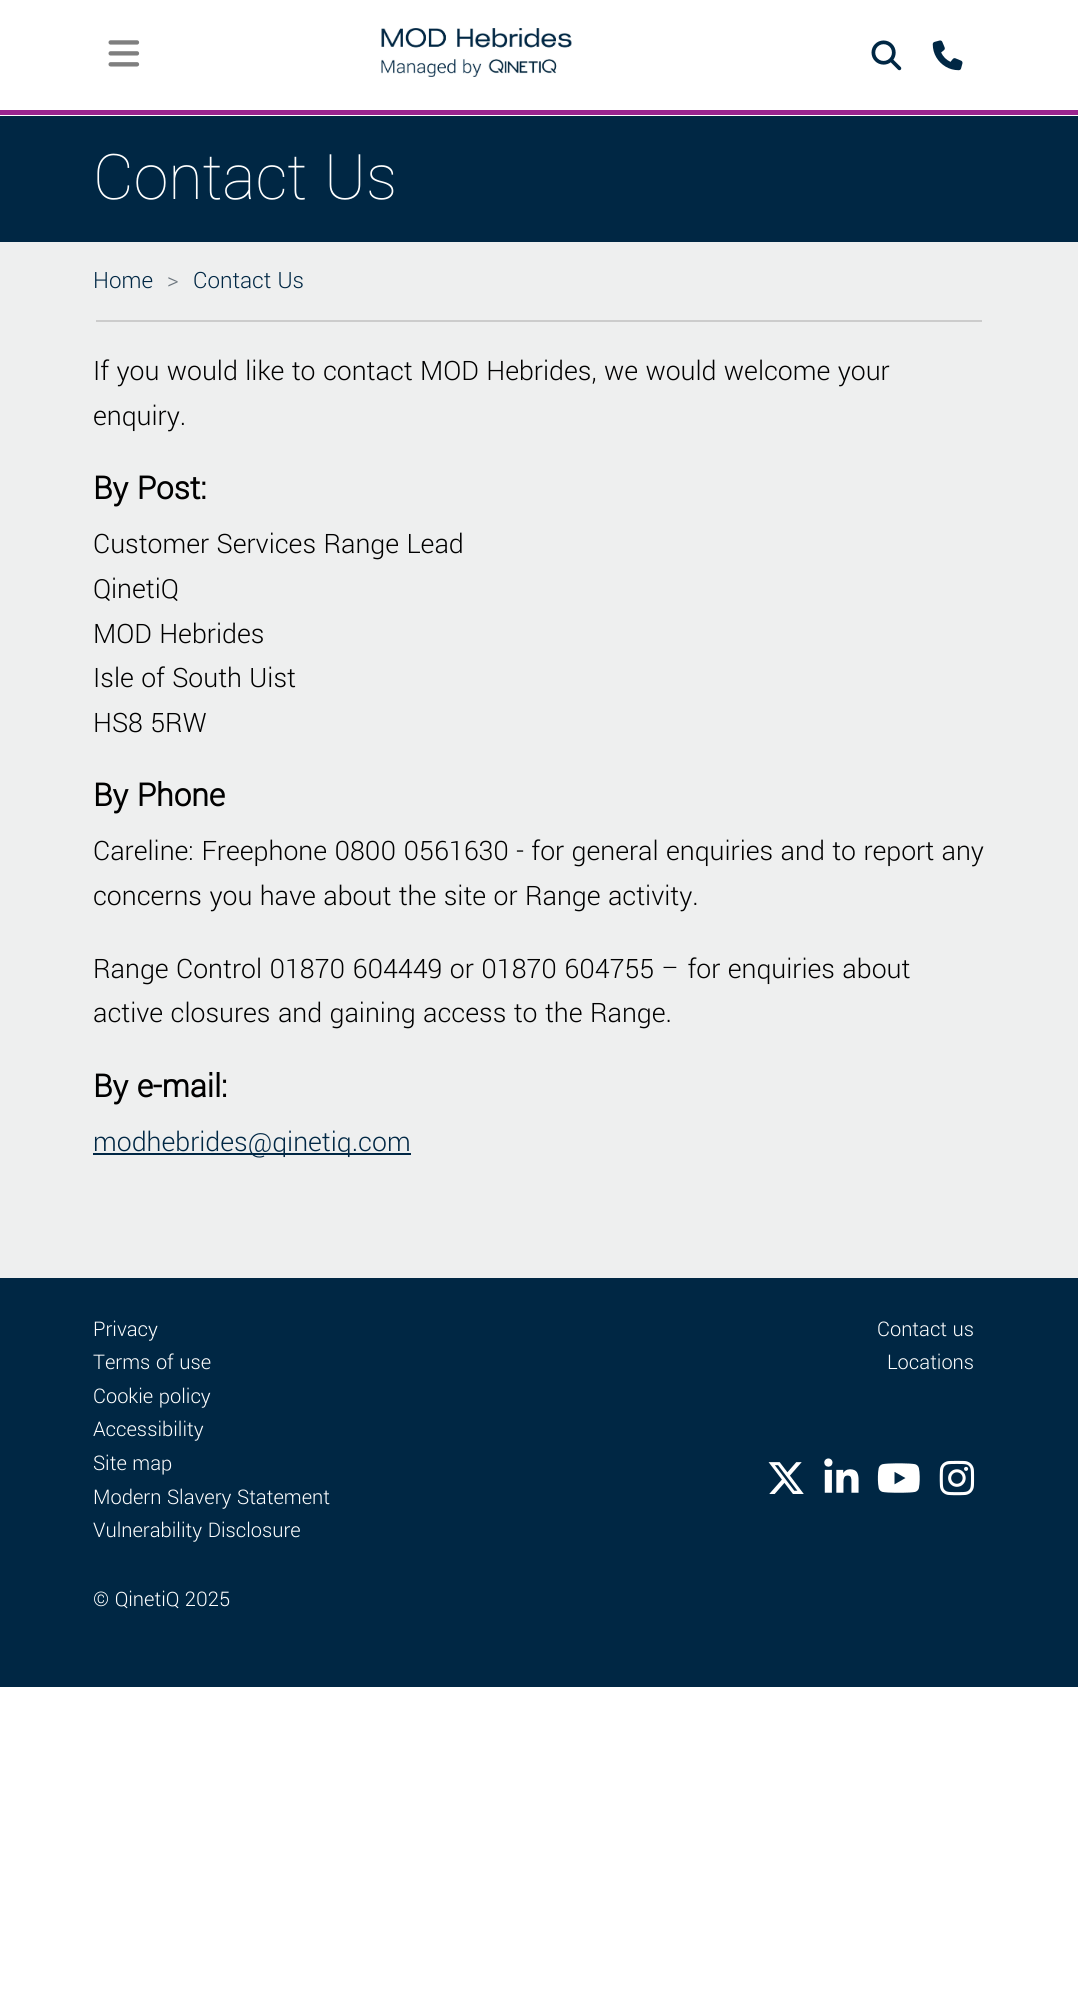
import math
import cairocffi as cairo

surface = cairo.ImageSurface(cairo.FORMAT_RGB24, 1078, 1994)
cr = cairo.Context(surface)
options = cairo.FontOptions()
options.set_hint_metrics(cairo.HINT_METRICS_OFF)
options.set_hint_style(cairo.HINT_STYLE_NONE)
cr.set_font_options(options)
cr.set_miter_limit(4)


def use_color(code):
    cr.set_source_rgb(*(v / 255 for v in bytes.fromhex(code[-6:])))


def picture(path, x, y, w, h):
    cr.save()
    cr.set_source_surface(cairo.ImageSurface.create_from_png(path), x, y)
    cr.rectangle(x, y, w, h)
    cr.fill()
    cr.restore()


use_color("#ffffff")
cr.paint()
use_color("#9a258f")
cr.rectangle(0, 110, 1078, 5)
cr.fill()
picture("img1.png", 108, 40, 32, 27)
picture("img2.png", 381, 28, 191, 49)
picture("img3.png", 871, 40, 31, 31)
picture("img4.png", 932, 40, 31, 31)
use_color("#eeefef")
cr.rectangle(0, 242, 1078, 1036)
cr.fill()
use_color("#002744")
cr.rectangle(0, 116, 1078, 126)
cr.fill()
cr.select_font_face("Yantramanav Thin")
cr.set_font_size(70)
use_color("#ffffff")
cr.move_to(93, 199)
cr.show_text("Contact Us")
use_color("#cccccc")
cr.rectangle(96, 320, 886, 2)
cr.fill()
cr.select_font_face("Yantramanav Light")
cr.set_font_size(25)
use_color("#002744")
cr.move_to(93, 288)
cr.show_text("Home")
use_color("#6c757d")
cr.move_to(167, 288)
cr.show_text(">")
use_color("#002744")
cr.move_to(193, 288)
cr.show_text("Contact Us")
cr.set_font_size(29.75)
use_color("#000000")
cr.move_to(93, 380)
cr.show_text("If you would like to contact MOD Hebrides, we would welcome your")
cr.move_to(93, 425)
cr.show_text("enquiry.")
cr.select_font_face("Yantramanav", cairo.FONT_SLANT_NORMAL, cairo.FONT_WEIGHT_BOLD)
cr.set_font_size(35)
cr.move_to(93, 499)
cr.show_text("By Post:")
cr.select_font_face("Yantramanav Light")
cr.set_font_size(29.75)
cr.move_to(93, 553)
cr.show_text("Customer Services Range Lead")
cr.move_to(93, 598)
cr.show_text("QinetiQ")
cr.move_to(93, 643)
cr.show_text("MOD Hebrides")
cr.move_to(93, 687)
cr.show_text("Isle of South Uist")
cr.move_to(93, 732)
cr.show_text("HS8 5RW")
cr.select_font_face("Yantramanav", cairo.FONT_SLANT_NORMAL, cairo.FONT_WEIGHT_BOLD)
cr.set_font_size(35)
cr.move_to(93, 806)
cr.show_text("By Phone")
cr.select_font_face("Yantramanav Light")
cr.set_font_size(29.75)
cr.move_to(93, 860)
cr.show_text("Careline: Freephone 0800 0561630 - for general enquiries and to report any")
cr.move_to(93, 905)
cr.show_text("concerns you have about the site or Range activity.")
cr.move_to(93, 978)
cr.show_text("Range Control 01870 604449 or 01870 604755 – for enquiries about")
cr.move_to(93, 1022)
cr.show_text("active closures and gaining access to the Range.")
cr.select_font_face("Yantramanav", cairo.FONT_SLANT_NORMAL, cairo.FONT_WEIGHT_BOLD)
cr.set_font_size(35)
cr.move_to(93, 1097)
cr.show_text("By e-mail:")
use_color("#002744")
cr.rectangle(93, 1153, 318, 2)
cr.fill()
cr.select_font_face("Yantramanav Light")
cr.set_font_size(29.75)
cr.move_to(93, 1151)
cr.show_text("modhebrides@qinetiq.com")
cr.rectangle(0, 1278, 1078, 409)
cr.fill()
cr.set_font_size(22.4)
use_color("#ffffff")
cr.move_to(93, 1336)
cr.show_text("Privacy")
cr.move_to(93, 1369)
cr.show_text("Terms of use")
cr.move_to(93, 1403)
cr.show_text("Cookie policy")
cr.move_to(93, 1436)
cr.show_text("Accessibility")
cr.move_to(93, 1470)
cr.show_text("Site map")
cr.move_to(93, 1504)
cr.show_text("Modern Slavery Statement")
cr.move_to(93, 1537)
cr.show_text("Vulnerability Disclosure")
cr.move_to(877, 1336)
cr.show_text("Contact us")
cr.move_to(887, 1369)
cr.show_text("Locations")
picture("img5.png", 768, 1462, 36, 32)
picture("img6.png", 824, 1458, 35, 35)
picture("img7.png", 877, 1463, 43, 30)
picture("img8.png", 939, 1460, 36, 36)
cr.move_to(93, 1606)
cr.show_text("© QinetiQ 2025")
surface.write_to_png("result.png")
